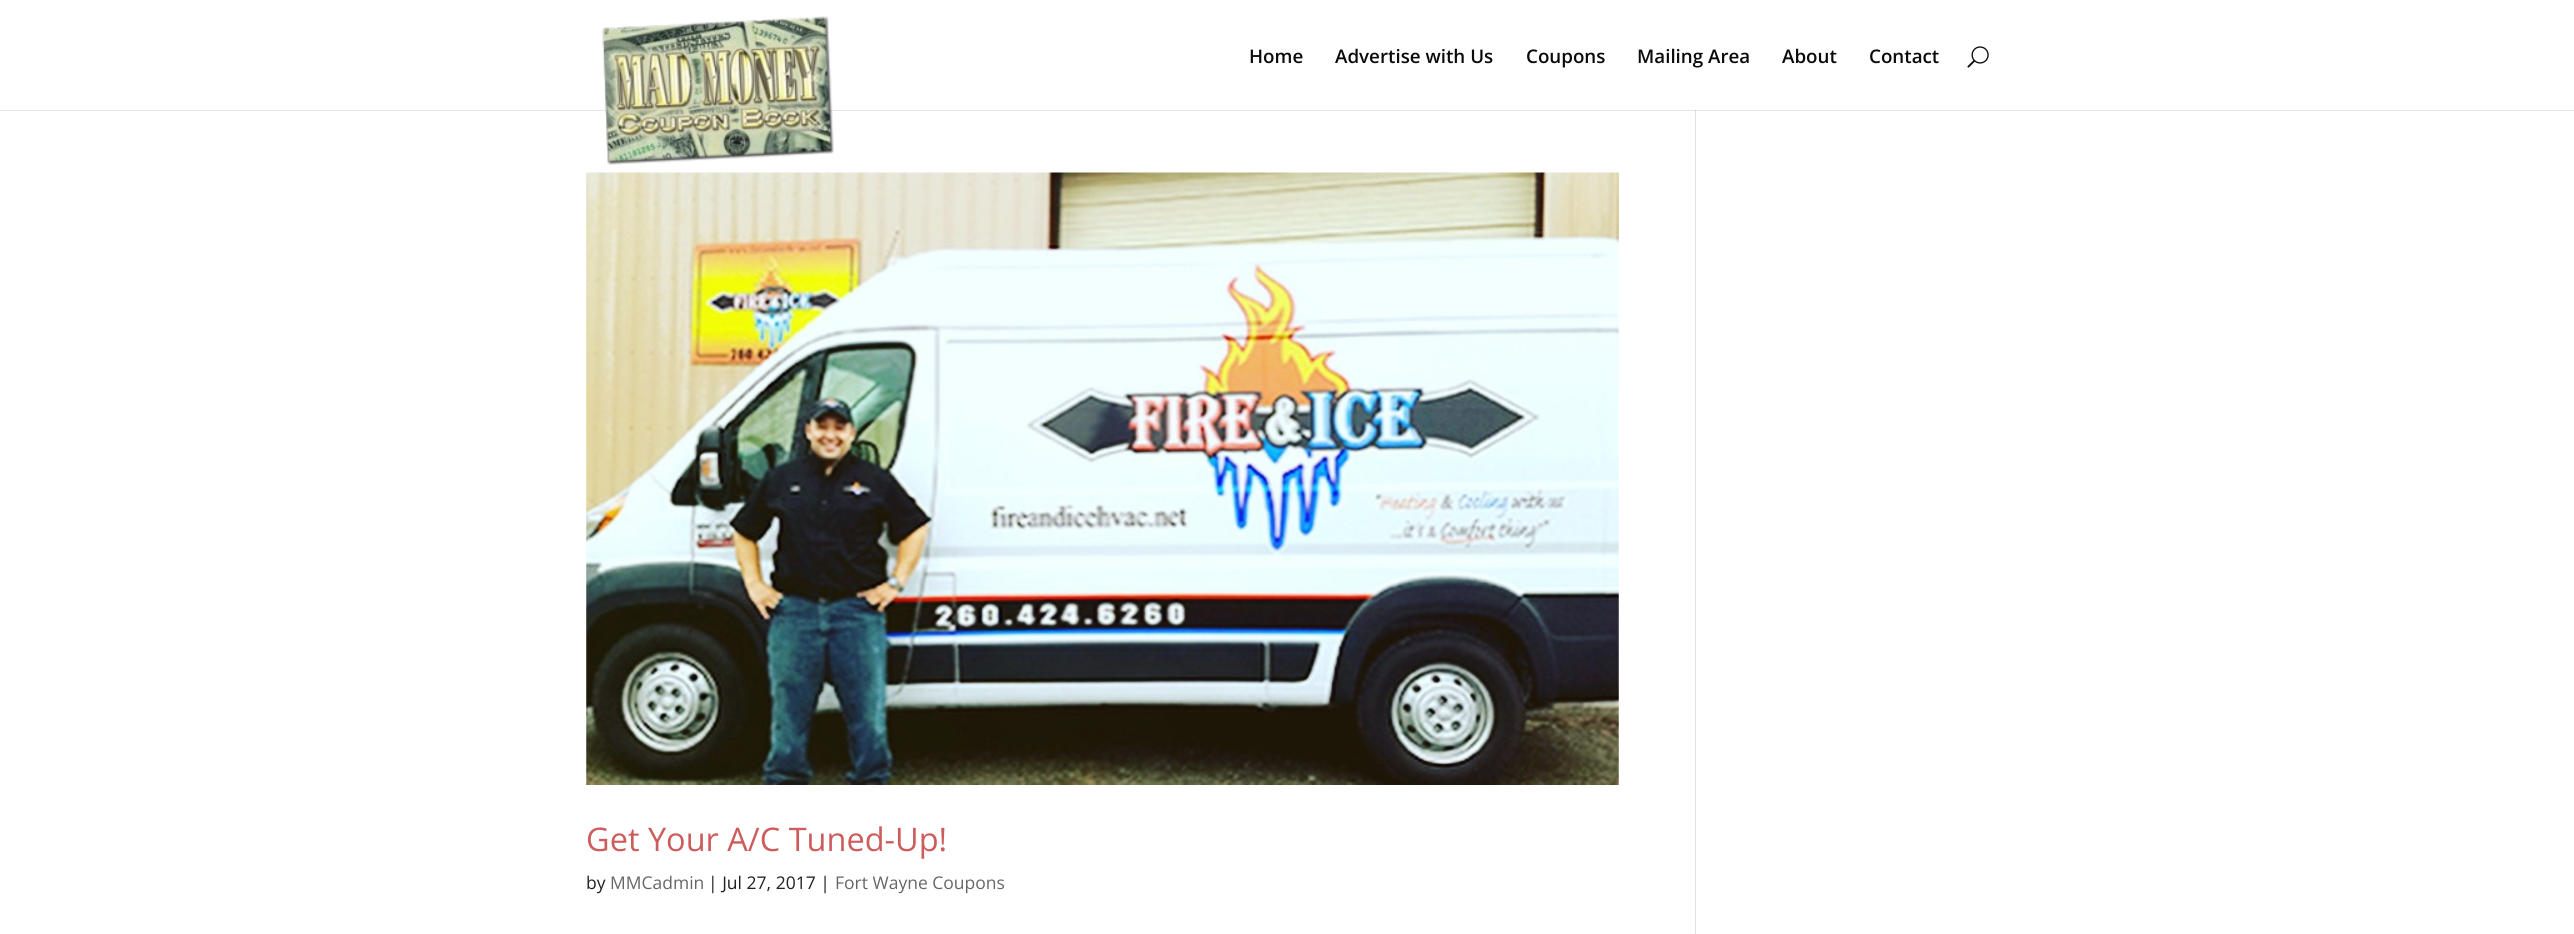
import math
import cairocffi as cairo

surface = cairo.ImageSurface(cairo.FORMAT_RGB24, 2574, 934)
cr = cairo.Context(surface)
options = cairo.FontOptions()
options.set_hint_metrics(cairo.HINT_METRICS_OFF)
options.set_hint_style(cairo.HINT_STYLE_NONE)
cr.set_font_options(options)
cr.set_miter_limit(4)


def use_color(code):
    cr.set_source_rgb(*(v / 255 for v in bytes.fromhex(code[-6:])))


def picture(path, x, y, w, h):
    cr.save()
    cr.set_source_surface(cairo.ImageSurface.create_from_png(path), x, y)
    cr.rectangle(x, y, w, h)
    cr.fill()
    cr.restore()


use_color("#ffffff")
cr.paint()
use_color("#e2e2e2")
cr.rectangle(1695, 110, 1, 824)
cr.fill()
cr.set_source_rgba(0, 0, 0, 0.1)
cr.rectangle(0, 110, 2574, 1)
cr.fill()
picture("img1.png", 602, 16, 232, 149)
cr.select_font_face("Open Sans SemiBold")
cr.set_font_size(18.75)
use_color("#0a0a0a")
cr.move_to(1249, 63)
cr.show_text("Home")
cr.move_to(1335, 63)
cr.show_text("Advertise with Us")
cr.move_to(1526, 63)
cr.show_text("Coupons")
cr.move_to(1637, 63)
cr.show_text("Mailing Area")
cr.move_to(1782, 63)
cr.show_text("About")
cr.move_to(1869, 63)
cr.show_text("Contact")
picture("img2.png", 1967, 46, 22, 22)
picture("img3.png", 586, 172, 1033, 613)
cr.select_font_face("Open Sans")
cr.set_font_size(32.5)
use_color("#cd5c5c")
cr.move_to(586, 851)
cr.show_text("Get Your A/C Tuned-Up!")
cr.set_font_size(17.5)
use_color("#212121")
cr.move_to(586, 889)
cr.show_text("by")
use_color("#666666")
cr.move_to(610, 889)
cr.show_text("MMCadmin")
use_color("#212121")
cr.move_to(708, 889)
cr.show_text("| Jul 27, 2017 |")
use_color("#666666")
cr.move_to(835, 889)
cr.show_text("Fort Wayne Coupons")
surface.write_to_png("result.png")
